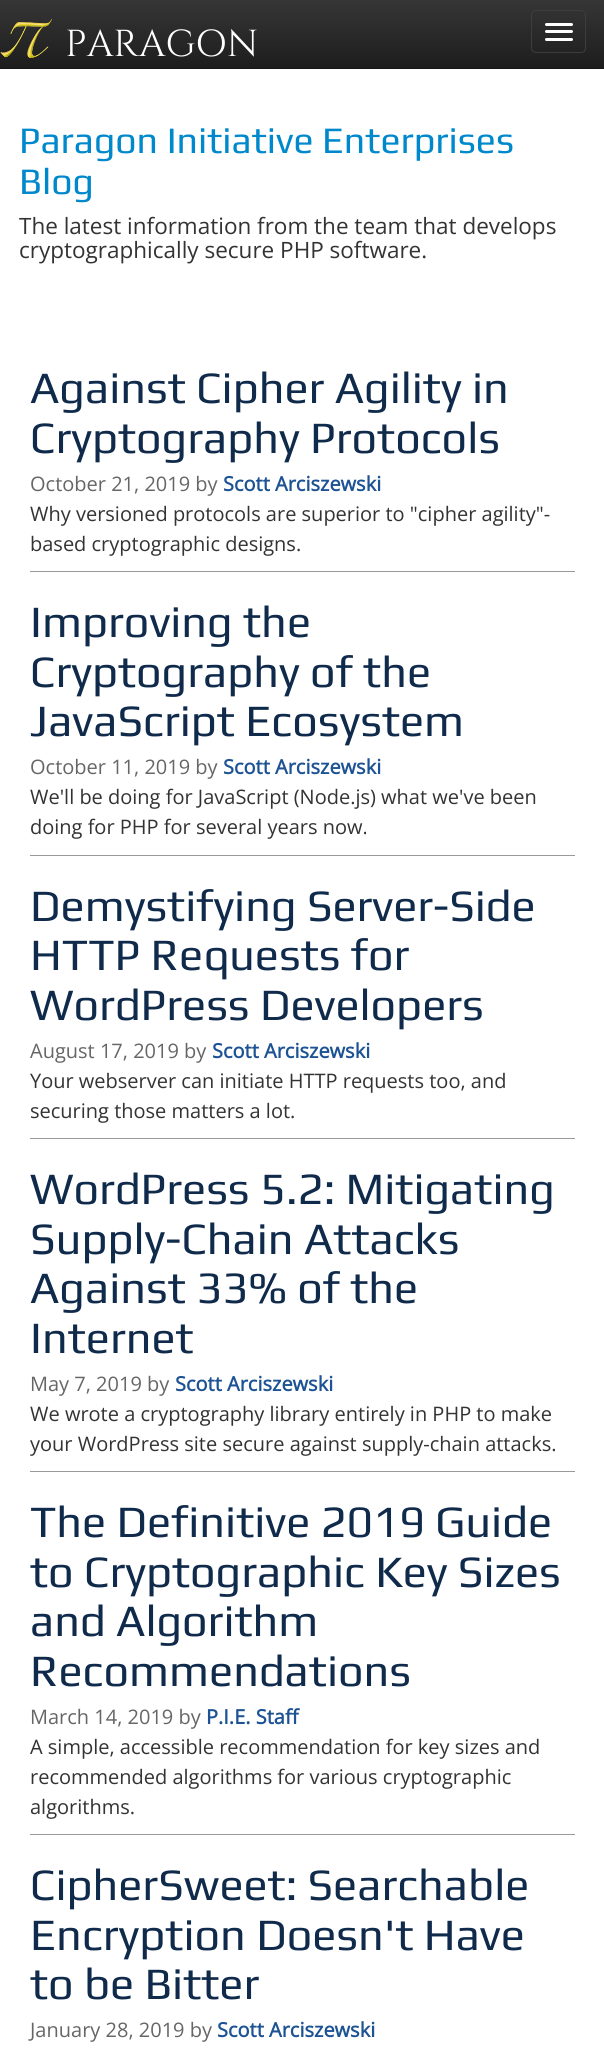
import math
import cairocffi as cairo

surface = cairo.ImageSurface(cairo.FORMAT_RGB24, 604, 2048)
cr = cairo.Context(surface)
options = cairo.FontOptions()
options.set_hint_metrics(cairo.HINT_METRICS_OFF)
options.set_hint_style(cairo.HINT_STYLE_NONE)
cr.set_font_options(options)
cr.set_miter_limit(4)


def use_color(code):
    cr.set_source_rgb(*(v / 255 for v in bytes.fromhex(code[-6:])))


def round_rect(x, y, w, h, r):
    cr.new_sub_path()
    for i, (u, v) in enumerate([(x + w - r, y + h - r), (x + r, y + h - r), (x + r, y + r), (x + w - r, y + r)]):
        cr.arc(u, v, r, i * math.pi / 2, (i + 1) * math.pi / 2)
    cr.close_path()


def picture(path, x, y, w, h):
    cr.save()
    cr.set_source_surface(cairo.ImageSurface.create_from_png(path), x, y)
    cr.rectangle(x, y, w, h)
    cr.fill()
    cr.restore()


use_color("#ffffff")
cr.paint()
gradient = cairo.LinearGradient(303, 0, 303, 68)
gradient.add_color_stop_rgba(0, 0.212, 0.212, 0.212, 1)
gradient.add_color_stop_rgba(1, 0.114, 0.114, 0.114, 1)
cr.set_source(gradient)
cr.rectangle(0, 0, 604, 68)
cr.fill()
use_color("#171717")
cr.rectangle(0, 68, 604, 1)
cr.fill()
picture("img1.png", 0, 19, 52, 39)
cr.select_font_face("Cinzel")
cr.set_font_size(37.5)
use_color("#ffffff")
cr.move_to(65, 56)
cr.show_text("PARAGON")
round_rect(531.5, 10.5, 54, 42, 4.5)
use_color("#3d3d3d")
cr.set_line_width(1)
cr.stroke()
use_color("#ffffff")
round_rect(545, 23, 28, 3, 1.5)
cr.fill()
round_rect(545, 30, 28, 3, 1.5)
cr.fill()
round_rect(545, 38, 28, 3, 1.5)
cr.fill()
cr.select_font_face("Play")
use_color("#0088cc")
cr.move_to(19, 153)
cr.show_text("Paragon Initiative Enterprises")
cr.move_to(19, 194)
cr.show_text("Blog")
cr.select_font_face("Open Sans")
cr.set_font_size(22.5)
use_color("#333333")
cr.move_to(19, 234)
cr.show_text("The latest information from the team that develops")
cr.move_to(19, 258)
cr.show_text("cryptographically secure PHP software.")
cr.select_font_face("Play")
cr.set_font_size(45)
use_color("#0f2a4a")
cr.move_to(30, 403)
cr.show_text("Against Cipher Agility in")
cr.move_to(30, 453)
cr.show_text("Cryptography Protocols")
cr.select_font_face("Open Sans")
cr.set_font_size(20)
use_color("#666666")
cr.move_to(30, 491)
cr.show_text("October 21, 2019 by")
cr.select_font_face("Open Sans", cairo.FONT_SLANT_NORMAL, cairo.FONT_WEIGHT_BOLD)
use_color("#1d5394")
cr.move_to(223, 491)
cr.show_text("Scott Arciszewski")
cr.select_font_face("Open Sans")
use_color("#333333")
cr.move_to(30, 521)
cr.show_text("Why versioned protocols are superior to \"cipher agility\"-")
cr.move_to(30, 551)
cr.show_text("based cryptographic designs.")
use_color("#999999")
cr.rectangle(30, 571, 545, 1)
cr.fill()
cr.select_font_face("Play")
cr.set_font_size(45)
use_color("#0f2a4a")
cr.move_to(30, 637)
cr.show_text("Improving the")
cr.move_to(30, 687)
cr.show_text("Cryptography of the")
cr.move_to(30, 736)
cr.show_text("JavaScript Ecosystem")
cr.select_font_face("Open Sans")
cr.set_font_size(20)
use_color("#666666")
cr.move_to(30, 774)
cr.show_text("October 11, 2019 by")
cr.select_font_face("Open Sans", cairo.FONT_SLANT_NORMAL, cairo.FONT_WEIGHT_BOLD)
use_color("#1d5394")
cr.move_to(223, 774)
cr.show_text("Scott Arciszewski")
cr.select_font_face("Open Sans")
use_color("#333333")
cr.move_to(30, 804)
cr.show_text("We'll be doing for JavaScript (Node.js) what we've been")
cr.move_to(30, 834)
cr.show_text("doing for PHP for several years now.")
use_color("#999999")
cr.rectangle(30, 855, 545, 1)
cr.fill()
cr.select_font_face("Play")
cr.set_font_size(45)
use_color("#0f2a4a")
cr.move_to(30, 921)
cr.show_text("Demystifying Server-Side")
cr.move_to(30, 970)
cr.show_text("HTTP Requests for")
cr.move_to(30, 1020)
cr.show_text("WordPress Developers")
cr.select_font_face("Open Sans")
cr.set_font_size(20)
use_color("#666666")
cr.move_to(30, 1058)
cr.show_text("August 17, 2019 by")
cr.select_font_face("Open Sans", cairo.FONT_SLANT_NORMAL, cairo.FONT_WEIGHT_BOLD)
use_color("#1d5394")
cr.move_to(212, 1058)
cr.show_text("Scott Arciszewski")
cr.select_font_face("Open Sans")
use_color("#333333")
cr.move_to(30, 1088)
cr.show_text("Your webserver can initiate HTTP requests too, and")
cr.move_to(30, 1118)
cr.show_text("securing those matters a lot.")
use_color("#999999")
cr.rectangle(30, 1138, 545, 1)
cr.fill()
cr.select_font_face("Play")
cr.set_font_size(45)
use_color("#0f2a4a")
cr.move_to(30, 1204)
cr.show_text("WordPress 5.2: Mitigating")
cr.move_to(30, 1254)
cr.show_text("Supply-Chain Attacks")
cr.move_to(30, 1303)
cr.show_text("Against 33% of the")
cr.move_to(30, 1353)
cr.show_text("Internet")
cr.select_font_face("Open Sans")
cr.set_font_size(20)
use_color("#666666")
cr.move_to(30, 1391)
cr.show_text("May 7, 2019 by")
cr.select_font_face("Open Sans", cairo.FONT_SLANT_NORMAL, cairo.FONT_WEIGHT_BOLD)
use_color("#1d5394")
cr.move_to(175, 1391)
cr.show_text("Scott Arciszewski")
cr.select_font_face("Open Sans")
use_color("#333333")
cr.move_to(30, 1421)
cr.show_text("We wrote a cryptography library entirely in PHP to make")
cr.move_to(30, 1451)
cr.show_text("your WordPress site secure against supply-chain attacks.")
use_color("#999999")
cr.rectangle(30, 1471, 545, 1)
cr.fill()
cr.select_font_face("Play")
cr.set_font_size(45)
use_color("#0f2a4a")
cr.move_to(30, 1537)
cr.show_text("The Definitive 2019 Guide")
cr.move_to(30, 1587)
cr.show_text("to Cryptographic Key Sizes")
cr.move_to(30, 1636)
cr.show_text("and Algorithm")
cr.move_to(30, 1686)
cr.show_text("Recommendations")
cr.select_font_face("Open Sans")
cr.set_font_size(20)
use_color("#666666")
cr.move_to(30, 1724)
cr.show_text("March 14, 2019 by")
cr.select_font_face("Open Sans", cairo.FONT_SLANT_NORMAL, cairo.FONT_WEIGHT_BOLD)
use_color("#1d5394")
cr.move_to(206, 1724)
cr.show_text("P.I.E. Staff")
cr.select_font_face("Open Sans")
use_color("#333333")
cr.move_to(30, 1754)
cr.show_text("A simple, accessible recommendation for key sizes and")
cr.move_to(30, 1784)
cr.show_text("recommended algorithms for various cryptographic")
cr.move_to(30, 1814)
cr.show_text("algorithms.")
use_color("#999999")
cr.rectangle(30, 1834, 545, 1)
cr.fill()
cr.select_font_face("Play")
cr.set_font_size(45)
use_color("#0f2a4a")
cr.move_to(30, 1900)
cr.show_text("CipherSweet: Searchable")
cr.move_to(30, 1950)
cr.show_text("Encryption Doesn't Have")
cr.move_to(30, 1999)
cr.show_text("to be Bitter")
cr.select_font_face("Open Sans")
cr.set_font_size(20)
use_color("#666666")
cr.move_to(30, 2037)
cr.show_text("January 28, 2019 by")
cr.select_font_face("Open Sans", cairo.FONT_SLANT_NORMAL, cairo.FONT_WEIGHT_BOLD)
use_color("#1d5394")
cr.move_to(217, 2037)
cr.show_text("Scott Arciszewski")
surface.write_to_png("result.png")
